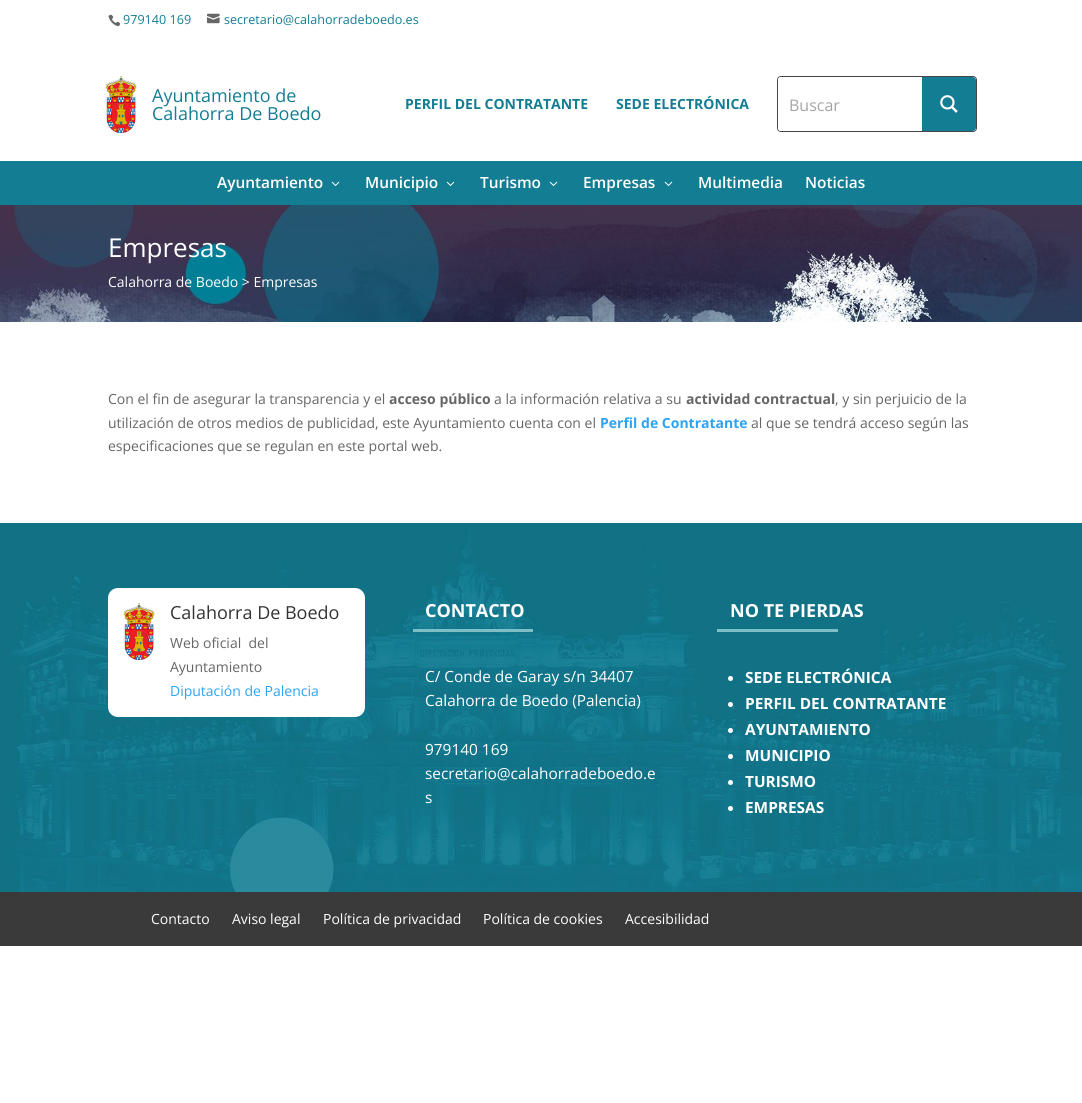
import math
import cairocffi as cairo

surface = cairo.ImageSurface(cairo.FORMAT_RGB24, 1082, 1103)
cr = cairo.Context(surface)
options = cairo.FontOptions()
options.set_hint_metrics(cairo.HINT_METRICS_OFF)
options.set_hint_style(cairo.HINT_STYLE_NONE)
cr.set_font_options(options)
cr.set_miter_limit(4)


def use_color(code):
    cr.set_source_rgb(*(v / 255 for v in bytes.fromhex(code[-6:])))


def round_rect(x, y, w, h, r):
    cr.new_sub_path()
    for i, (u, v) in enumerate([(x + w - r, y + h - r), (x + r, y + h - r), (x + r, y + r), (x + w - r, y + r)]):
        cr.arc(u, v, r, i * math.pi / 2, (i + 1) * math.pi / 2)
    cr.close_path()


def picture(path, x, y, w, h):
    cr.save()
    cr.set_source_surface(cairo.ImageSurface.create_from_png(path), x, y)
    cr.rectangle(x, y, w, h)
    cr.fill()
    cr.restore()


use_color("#ffffff")
cr.paint()
picture("img1.png", 108, 14, 12, 13)
cr.select_font_face("Open Sans")
cr.set_font_size(12.6)
use_color("#137d93")
cr.move_to(123, 24)
cr.show_text("979140 169")
picture("img2.png", 207, 13, 13, 11)
cr.move_to(224, 24)
cr.show_text("secretario@calahorradeboedo.es")
picture("img3.png", 105, 76, 32, 57)
cr.set_font_size(18)
cr.move_to(152, 102)
cr.show_text("Ayuntamiento de")
cr.move_to(152, 120)
cr.show_text("Calahorra De Boedo")
cr.select_font_face("Open Sans", cairo.FONT_SLANT_NORMAL, cairo.FONT_WEIGHT_BOLD)
cr.set_font_size(14)
cr.move_to(405, 109)
cr.show_text("PERFIL DEL CONTRATANTE")
cr.move_to(616, 109)
cr.show_text("SEDE ELECTRÓNICA")
cr.save()
round_rect(777, 76, 200, 56, 4)
cr.clip()
gradient = cairo.RadialGradient(0, 0, 0, 0, 0, 1)
gradient.set_matrix(cairo.Matrix(1 / 140, 0, 0, 1 / 38, -1 * 877 / 140, -1 * 104 / 38))
gradient.add_color_stop_rgba(0, 1, 0.988, 0.988, 1)
gradient.add_color_stop_rgba(1, 1, 1, 1, 1)
cr.set_source(gradient)
cr.rectangle(778, 77, 198, 54)
cr.fill()
cr.restore()
round_rect(777.5, 76.5, 199, 55, 3.5)
cr.set_source_rgba(0, 0, 0, 0.73)
cr.set_line_width(1)
cr.stroke()
use_color("#ffffff")
round_rect(778, 77, 198, 54, 3)
cr.fill()
cr.select_font_face("Open Sans")
cr.set_font_size(16)
use_color("#a5a5a5")
cr.move_to(789, 111)
cr.show_text("Buscar")
use_color("#137d93")
cr.new_path()
cr.move_to(922, 77)
cr.line_to(973, 77)
cr.curve_to(974.5, 77, 976, 78.5, 976, 80)
cr.line_to(976, 128)
cr.curve_to(976, 129.5, 974.5, 131, 973, 131)
cr.line_to(922, 131)
cr.close_path()
cr.fill()
picture("img4.png", 940, 95, 18, 18)
cr.rectangle(0, 161, 1082, 44)
cr.fill()
cr.select_font_face("Open Sans SemiBold")
cr.set_font_size(15.4)
use_color("#ffffff")
cr.move_to(217, 188)
cr.show_text("Ayuntamiento")
picture("img5.png", 331, 181, 9, 5)
cr.move_to(365, 188)
cr.show_text("Municipio")
picture("img5.png", 446, 181, 9, 5)
cr.move_to(480, 188)
cr.show_text("Turismo")
picture("img5.png", 549, 181, 9, 5)
cr.move_to(583, 188)
cr.show_text("Empresas")
picture("img5.png", 664, 181, 9, 5)
cr.move_to(698, 188)
cr.show_text("Multimedia")
cr.move_to(805, 188)
cr.show_text("Noticias")
picture("img6.png", 0, 205, 1082, 117)
cr.select_font_face("Open Sans")
cr.set_font_size(26)
cr.move_to(108, 257)
cr.show_text("Empresas")
cr.set_font_size(14)
cr.move_to(108, 287)
cr.show_text("Calahorra de Boedo > Empresas")
use_color("#666666")
cr.move_to(108, 404)
cr.show_text("Con el fin de asegurar la transparencia y el")
cr.select_font_face("Open Sans", cairo.FONT_SLANT_NORMAL, cairo.FONT_WEIGHT_BOLD)
cr.move_to(389, 404)
cr.show_text("acceso público")
cr.select_font_face("Open Sans")
cr.move_to(494, 404)
cr.show_text("a la información relativa a su")
cr.select_font_face("Open Sans", cairo.FONT_SLANT_NORMAL, cairo.FONT_WEIGHT_BOLD)
cr.move_to(686, 404)
cr.show_text("actividad contractual")
cr.select_font_face("Open Sans")
cr.move_to(835, 404)
cr.show_text(", y sin perjuicio de la")
cr.move_to(108, 428)
cr.show_text("utilización de otros medios de publicidad, este Ayuntamiento cuenta con el")
cr.select_font_face("Open Sans", cairo.FONT_SLANT_NORMAL, cairo.FONT_WEIGHT_BOLD)
use_color("#2ea3f2")
cr.move_to(600, 428)
cr.show_text("Perfil de Contratante")
cr.select_font_face("Open Sans")
use_color("#666666")
cr.move_to(751, 428)
cr.show_text("al que se tendrá acceso según las")
cr.move_to(108, 451)
cr.show_text("especificaciones que se regulan en este portal web.")
picture("img7.png", 0, 523, 1082, 369)
use_color("#ffffff")
round_rect(108, 588, 257, 129, 10)
cr.fill()
picture("img3.png", 123, 603, 32, 57)
cr.set_font_size(18)
use_color("#333333")
cr.move_to(170, 619)
cr.show_text("Calahorra De Boedo")
cr.set_font_size(14)
use_color("#666666")
cr.move_to(170, 648)
cr.show_text("Web oficial  del")
cr.move_to(170, 672)
cr.show_text("Ayuntamiento")
use_color("#2ea3f2")
cr.move_to(170, 696)
cr.show_text("Diputación de Palencia")
cr.select_font_face("Open Sans", cairo.FONT_SLANT_NORMAL, cairo.FONT_WEIGHT_BOLD)
cr.set_font_size(18)
use_color("#ffffff")
cr.move_to(425, 617)
cr.show_text("CONTACTO")
use_color("#7ebec5")
cr.rectangle(413, 629, 120, 3)
cr.fill()
cr.select_font_face("Open Sans")
cr.set_font_size(15.4)
use_color("#ffffff")
cr.move_to(425, 682)
cr.show_text("C/ Conde de Garay s/n 34407")
cr.move_to(425, 706)
cr.show_text("Calahorra de Boedo (Palencia)")
cr.move_to(425, 755)
cr.show_text("979140 169")
cr.move_to(425, 779)
cr.show_text("secretario@calahorradeboedo.e")
cr.move_to(425, 803)
cr.show_text("s")
cr.select_font_face("Open Sans", cairo.FONT_SLANT_NORMAL, cairo.FONT_WEIGHT_BOLD)
cr.set_font_size(18)
cr.move_to(730, 617)
cr.show_text("NO TE PIERDAS")
use_color("#7ebec5")
cr.rectangle(717, 629, 121, 3)
cr.fill()
use_color("#ffffff")
cr.arc(730.5, 678.5, 2.5, 0, 2 * math.pi)
cr.fill()
cr.set_font_size(15.4)
cr.move_to(745, 683)
cr.show_text("SEDE ELECTRÓNICA")
cr.new_path()
cr.arc(730.5, 704.5, 2.5, 0, 2 * math.pi)
cr.fill()
cr.move_to(745, 709)
cr.show_text("PERFIL DEL CONTRATANTE")
cr.new_path()
cr.arc(730.5, 730.5, 2.5, 0, 2 * math.pi)
cr.fill()
cr.move_to(745, 735)
cr.show_text("AYUNTAMIENTO")
cr.new_path()
cr.arc(730.5, 756.5, 2.5, 0, 2 * math.pi)
cr.fill()
cr.move_to(745, 761)
cr.show_text("MUNICIPIO")
cr.new_path()
cr.arc(730.5, 782.5, 2.5, 0, 2 * math.pi)
cr.fill()
cr.move_to(745, 787)
cr.show_text("TURISMO")
cr.new_path()
cr.arc(730.5, 808.5, 2.5, 0, 2 * math.pi)
cr.fill()
cr.move_to(745, 813)
cr.show_text("EMPRESAS")
use_color("#3a3a3a")
cr.rectangle(0, 892, 1082, 54)
cr.fill()
cr.select_font_face("Open Sans")
cr.set_font_size(14)
use_color("#ffffff")
cr.move_to(151, 924)
cr.show_text("Contacto")
cr.move_to(232, 924)
cr.show_text("Aviso legal")
cr.move_to(323, 924)
cr.show_text("Política de privacidad")
cr.move_to(483, 924)
cr.show_text("Política de cookies")
cr.move_to(625, 924)
cr.show_text("Accesibilidad")
surface.write_to_png("result.png")
